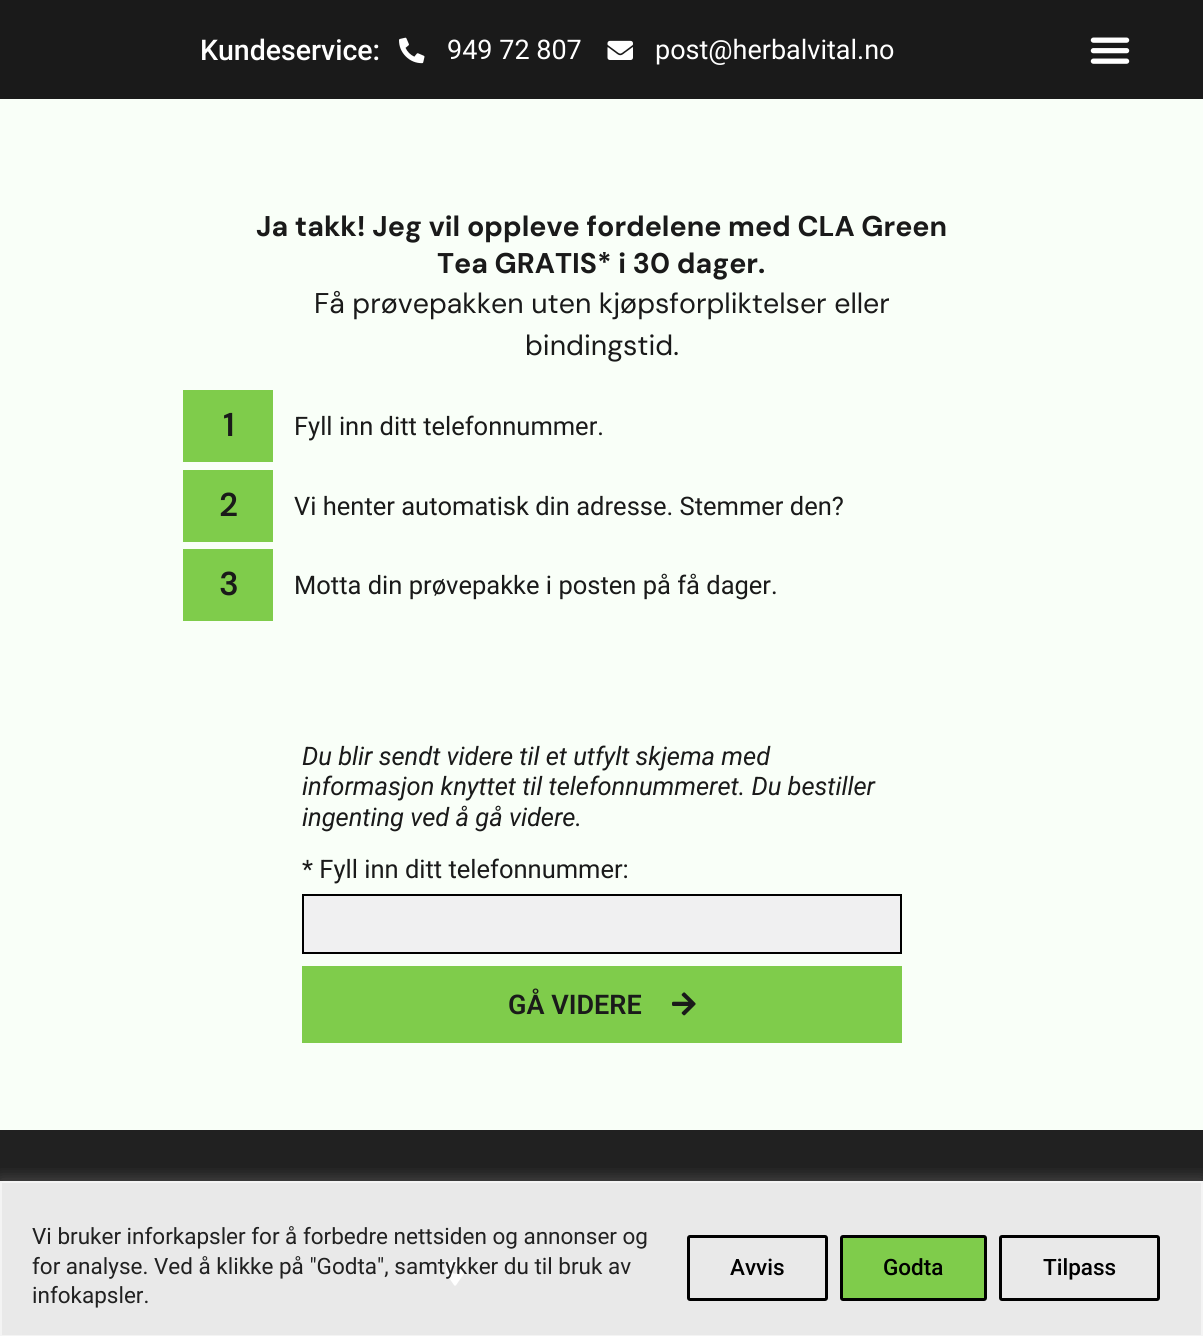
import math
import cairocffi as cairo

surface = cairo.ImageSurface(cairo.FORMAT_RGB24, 1203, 1336)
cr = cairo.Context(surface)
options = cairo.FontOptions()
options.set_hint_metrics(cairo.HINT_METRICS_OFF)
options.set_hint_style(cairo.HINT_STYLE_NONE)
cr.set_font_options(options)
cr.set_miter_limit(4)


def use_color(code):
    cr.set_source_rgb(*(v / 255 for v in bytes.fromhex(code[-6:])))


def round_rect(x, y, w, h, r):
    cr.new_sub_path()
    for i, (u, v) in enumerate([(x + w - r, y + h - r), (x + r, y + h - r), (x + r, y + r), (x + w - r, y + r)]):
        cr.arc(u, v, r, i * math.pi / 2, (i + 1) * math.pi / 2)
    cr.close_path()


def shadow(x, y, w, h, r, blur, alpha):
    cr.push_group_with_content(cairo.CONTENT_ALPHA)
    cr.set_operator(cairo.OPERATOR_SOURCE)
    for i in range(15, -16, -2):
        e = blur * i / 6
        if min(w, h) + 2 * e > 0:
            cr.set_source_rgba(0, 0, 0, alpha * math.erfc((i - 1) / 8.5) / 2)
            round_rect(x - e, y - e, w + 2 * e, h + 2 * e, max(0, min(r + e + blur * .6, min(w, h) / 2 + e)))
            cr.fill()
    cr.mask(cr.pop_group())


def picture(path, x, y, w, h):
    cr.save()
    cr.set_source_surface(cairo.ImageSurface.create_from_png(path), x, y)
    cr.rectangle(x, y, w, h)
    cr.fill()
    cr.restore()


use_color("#f9fff8")
cr.paint()
use_color("#1a1a1a")
cr.rectangle(0, 0, 1203, 99)
cr.fill()
cr.select_font_face("Roboto Medium")
cr.set_font_size(28.5)
use_color("#ffffff")
cr.move_to(200, 60)
cr.show_text("Kundeservice:")
picture("img1.png", 399, 37, 26, 27)
cr.select_font_face("Roboto")
cr.set_font_size(27)
cr.move_to(447, 59)
cr.show_text("949 72 807")
picture("img2.png", 607, 40, 26, 20)
cr.move_to(655, 59)
cr.show_text("post@herbalvital.no")
picture("img3.png", 1090, 37, 40, 27)
cr.select_font_face("DM Sans", cairo.FONT_SLANT_NORMAL, cairo.FONT_WEIGHT_BOLD)
cr.set_font_size(28.5)
use_color("#1a1a1a")
cr.move_to(256, 236)
cr.show_text("Ja takk! Jeg vil oppleve fordelene med CLA Green")
cr.move_to(437, 273)
cr.show_text("Tea GRATIS* i 30 dager.")
cr.select_font_face("DM Sans")
cr.move_to(314, 313)
cr.show_text("Få prøvepakken uten kjøpsforpliktelser eller")
cr.move_to(525, 355)
cr.show_text("bindingstid.")
use_color("#7fcc4b")
cr.rectangle(183, 390, 90, 72)
cr.fill()
cr.select_font_face("DM Sans SemiBold")
cr.set_font_size(33)
use_color("#1a1a1a")
cr.move_to(223, 436)
cr.show_text("1")
cr.select_font_face("Roboto")
cr.set_font_size(25.5)
cr.move_to(294, 435)
cr.show_text("Fyll inn ditt telefonnummer.")
use_color("#7fcc4b")
cr.rectangle(183, 470, 90, 72)
cr.fill()
cr.select_font_face("DM Sans SemiBold")
cr.set_font_size(33)
use_color("#1a1a1a")
cr.move_to(219, 516)
cr.show_text("2")
cr.select_font_face("Roboto")
cr.set_font_size(25.5)
cr.move_to(294, 515)
cr.show_text("Vi henter automatisk din adresse. Stemmer den?")
use_color("#7fcc4b")
cr.rectangle(183, 549, 90, 72)
cr.fill()
cr.select_font_face("DM Sans SemiBold")
cr.set_font_size(33)
use_color("#1a1a1a")
cr.move_to(219, 595)
cr.show_text("3")
cr.select_font_face("Roboto")
cr.set_font_size(25.5)
cr.move_to(294, 594)
cr.show_text("Motta din prøvepakke i posten på få dager.")
cr.select_font_face("Roboto", cairo.FONT_SLANT_ITALIC)
cr.move_to(302, 765)
cr.show_text("Du blir sendt videre til et utfylt skjema med")
cr.move_to(302, 795)
cr.show_text("informasjon knyttet til telefonnummeret. Du bestiller")
cr.move_to(302, 826)
cr.show_text("ingenting ved å gå videre.")
cr.select_font_face("Roboto")
cr.move_to(302, 878)
cr.show_text("* Fyll inn ditt telefonnummer:")
use_color("#f0f0f1")
cr.rectangle(303, 895, 598, 58)
cr.fill_preserve()
use_color("#000000")
cr.stroke()
use_color("#7fcc4b")
cr.rectangle(302, 966, 600, 77)
cr.fill()
cr.select_font_face("Roboto SemiBold")
cr.set_font_size(27)
use_color("#1a1a1a")
cr.move_to(508, 1014)
cr.show_text("GÅ VIDERE")
picture("img4.png", 672, 992, 24, 24)
use_color("#212121")
cr.rectangle(0, 1130, 1203, 205)
cr.fill()
picture("img5.png", 445, 1260, 20, 26)
cr.save()
cr.rectangle(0, 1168, 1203, 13)
cr.clip()
use_color("#acabab")
shadow(0, 1179, 1203, 156, 0, 7.5, 0.3)
cr.restore()
cr.set_source_rgba(1, 1, 1, 0.9)
cr.rectangle(1, 1182, 1201, 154)
cr.fill_preserve()
use_color("#f4f4f4")
cr.stroke()
cr.select_font_face("Roboto")
cr.set_font_size(22.5)
use_color("#212121")
cr.move_to(32, 1244)
cr.show_text("Vi bruker inforkapsler for å forbedre nettsiden og annonser og")
cr.move_to(32, 1274)
cr.show_text("for analyse. Ved å klikke på \"Godta\", samtykker du til bruk av")
cr.move_to(32, 1303)
cr.show_text("infokapsler.")
round_rect(688.5, 1236.5, 138, 63, 1.5)
use_color("#000000")
cr.set_line_width(3)
cr.stroke()
cr.select_font_face("Roboto Medium")
cr.move_to(730, 1275)
cr.show_text("Avvis")
use_color("#7fcc4b")
round_rect(841.5, 1236.5, 144, 63, 1.5)
cr.fill_preserve()
use_color("#000000")
cr.stroke()
cr.move_to(883, 1275)
cr.show_text("Godta")
round_rect(1000.5, 1236.5, 158, 63, 1.5)
cr.stroke()
cr.move_to(1043, 1275)
cr.show_text("Tilpass")
surface.write_to_png("result.png")
